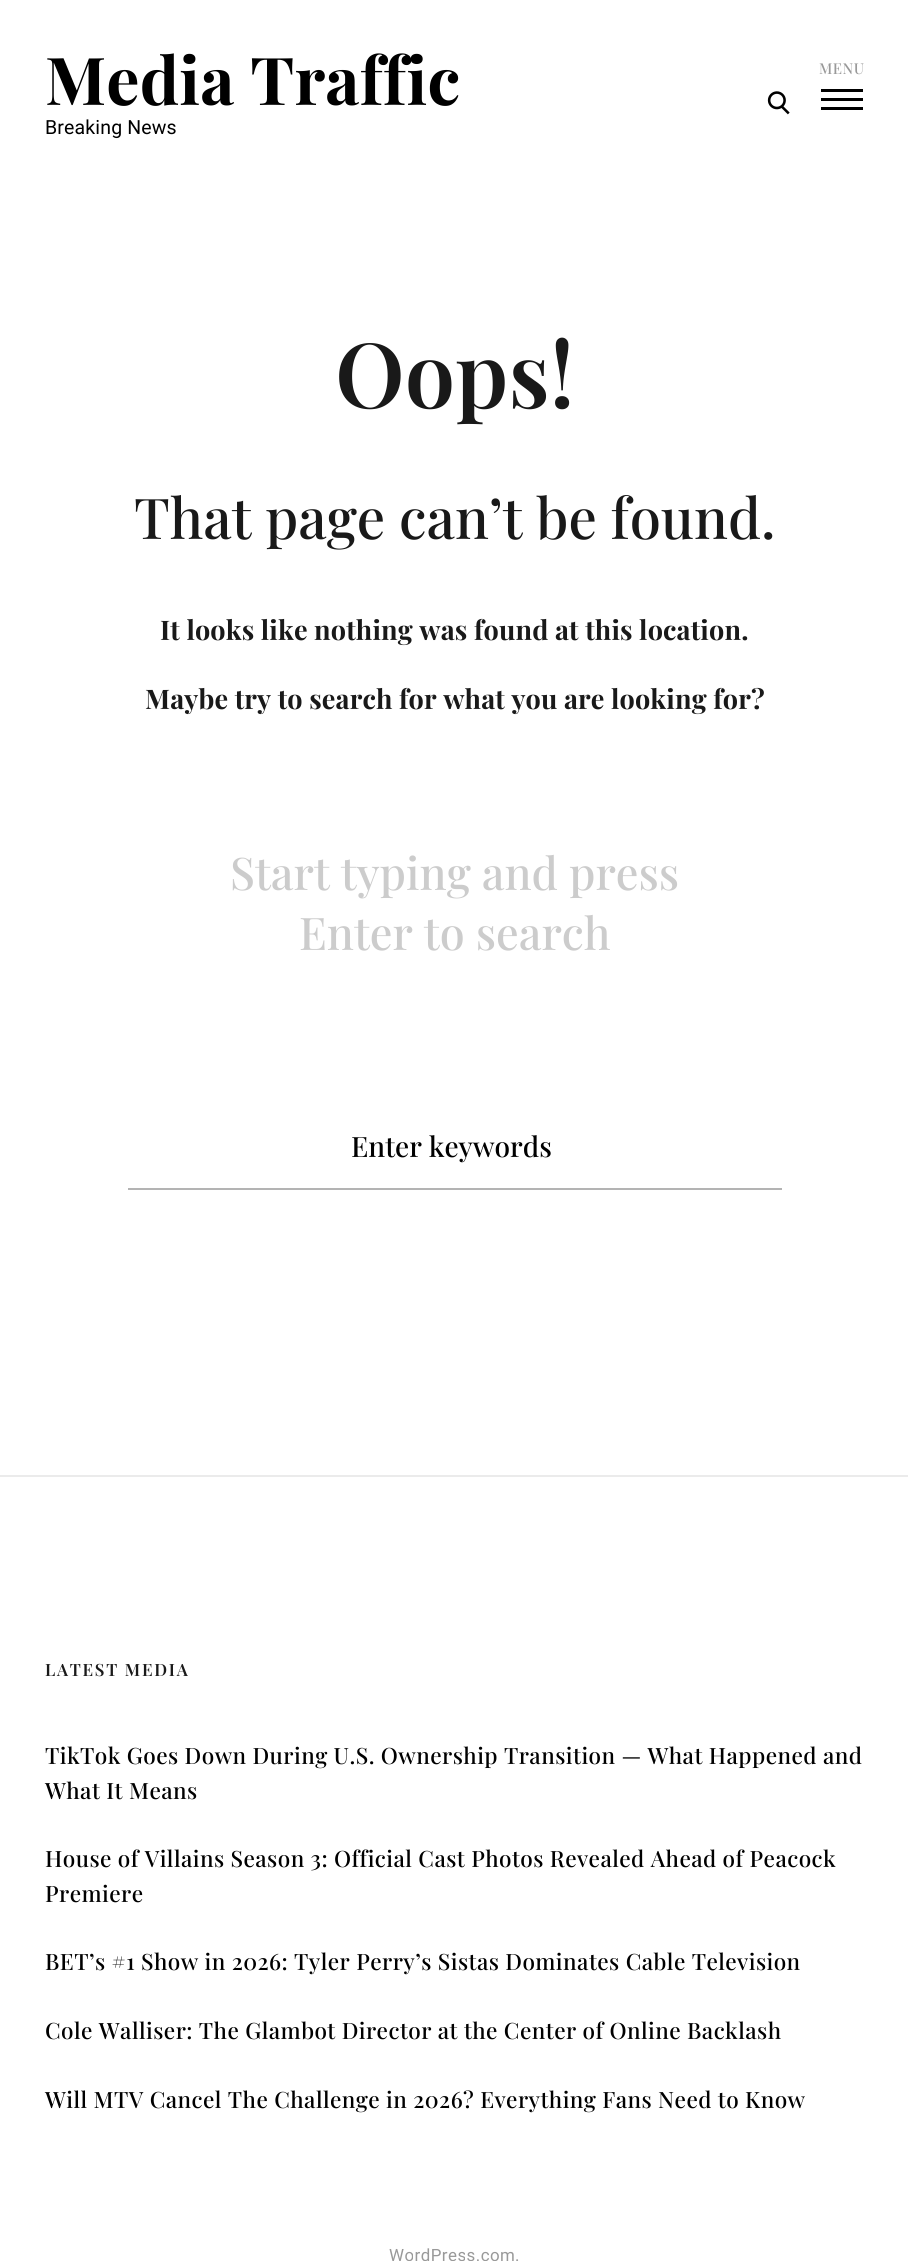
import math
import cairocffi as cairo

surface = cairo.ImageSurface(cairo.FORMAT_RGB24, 908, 2261)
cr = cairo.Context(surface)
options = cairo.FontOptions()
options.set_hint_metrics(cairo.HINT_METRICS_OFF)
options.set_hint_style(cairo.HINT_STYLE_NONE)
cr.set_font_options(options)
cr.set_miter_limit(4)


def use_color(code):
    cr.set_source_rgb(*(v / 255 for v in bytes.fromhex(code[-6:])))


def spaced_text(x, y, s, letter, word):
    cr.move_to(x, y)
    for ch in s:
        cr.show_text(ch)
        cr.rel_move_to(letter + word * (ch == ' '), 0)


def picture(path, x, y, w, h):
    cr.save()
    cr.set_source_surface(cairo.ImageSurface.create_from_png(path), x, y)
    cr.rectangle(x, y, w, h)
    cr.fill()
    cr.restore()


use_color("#ffffff")
cr.paint()
cr.select_font_face("Playfair Display", cairo.FONT_SLANT_NORMAL, cairo.FONT_WEIGHT_BOLD)
cr.set_font_size(66)
use_color("#000000")
spaced_text(45, 105, "Media Traffic", 0.15, 0)
cr.select_font_face("Roboto")
cr.set_font_size(19.5)
spaced_text(45, 134, "Breaking News", 0.15, 0)
cr.select_font_face("Playfair Display Medium")
cr.set_font_size(15)
use_color("#999999")
spaced_text(819, 74, "MENU", 0.5, 0)
use_color("#000000")
cr.rectangle(821, 89, 42, 3)
cr.fill()
cr.rectangle(821, 98, 42, 3)
cr.fill()
cr.rectangle(821, 107, 42, 3)
cr.fill()
picture("img1.png", 767, 91, 23, 24)
cr.select_font_face("Playfair Display SemiBold")
cr.set_font_size(90)
use_color("#191919")
cr.move_to(335, 408)
cr.show_text("Oops!")
cr.select_font_face("Playfair Display Medium")
cr.set_font_size(56.25)
cr.move_to(134, 539)
cr.show_text("That page can’t be found.")
cr.select_font_face("Playfair Display", cairo.FONT_SLANT_NORMAL, cairo.FONT_WEIGHT_BOLD)
cr.set_font_size(27)
spaced_text(160, 640, "It looks like nothing was found at this location.", 0.15, 0)
spaced_text(145, 709, "Maybe try to search for what you are looking for?", 0.15, 0)
cr.select_font_face("Playfair Display Medium")
cr.set_font_size(45)
use_color("#cccccc")
cr.move_to(230, 890)
cr.show_text("Start typing and press")
cr.move_to(299, 950)
cr.show_text("Enter to search")
use_color("#b3b3b3")
cr.rectangle(128, 1188, 654, 2)
cr.fill()
cr.set_font_size(28)
use_color("#000000")
cr.move_to(351, 1157)
cr.show_text("Enter keywords")
use_color("#ebebeb")
cr.rectangle(0, 1475, 908, 2)
cr.fill()
cr.select_font_face("Playfair Display SemiBold")
cr.set_font_size(16.9)
use_color("#191919")
spaced_text(45, 1676, "LATEST MEDIA", 1.75, 0)
cr.select_font_face("Playfair Display Medium")
cr.set_font_size(22.5)
use_color("#000000")
spaced_text(45, 1764, "TikTok Goes Down During U.S. Ownership Transition — What Happened and", 0.45, 0)
spaced_text(45, 1799, "What It Means", 0.45, 0)
spaced_text(45, 1867, "House of Villains Season 3: Official Cast Photos Revealed Ahead of Peacock", 0.45, 0)
spaced_text(45, 1902, "Premiere", 0.45, 0)
spaced_text(45, 1970, "BET’s #1 Show in 2026: Tyler Perry’s Sistas Dominates Cable Television", 0.45, 0)
spaced_text(45, 2039, "Cole Walliser: The Glambot Director at the Center of Online Backlash", 0.45, 0)
spaced_text(45, 2108, "Will MTV Cancel The Challenge in 2026? Everything Fans Need to Know", 0.45, 0)
cr.select_font_face("Roboto")
cr.set_font_size(16.9)
use_color("#999999")
spaced_text(389, 2261, "WordPress.com", 0.45, 0)
spaced_text(515, 2261, ".", 1, 0)
surface.write_to_png("result.png")
